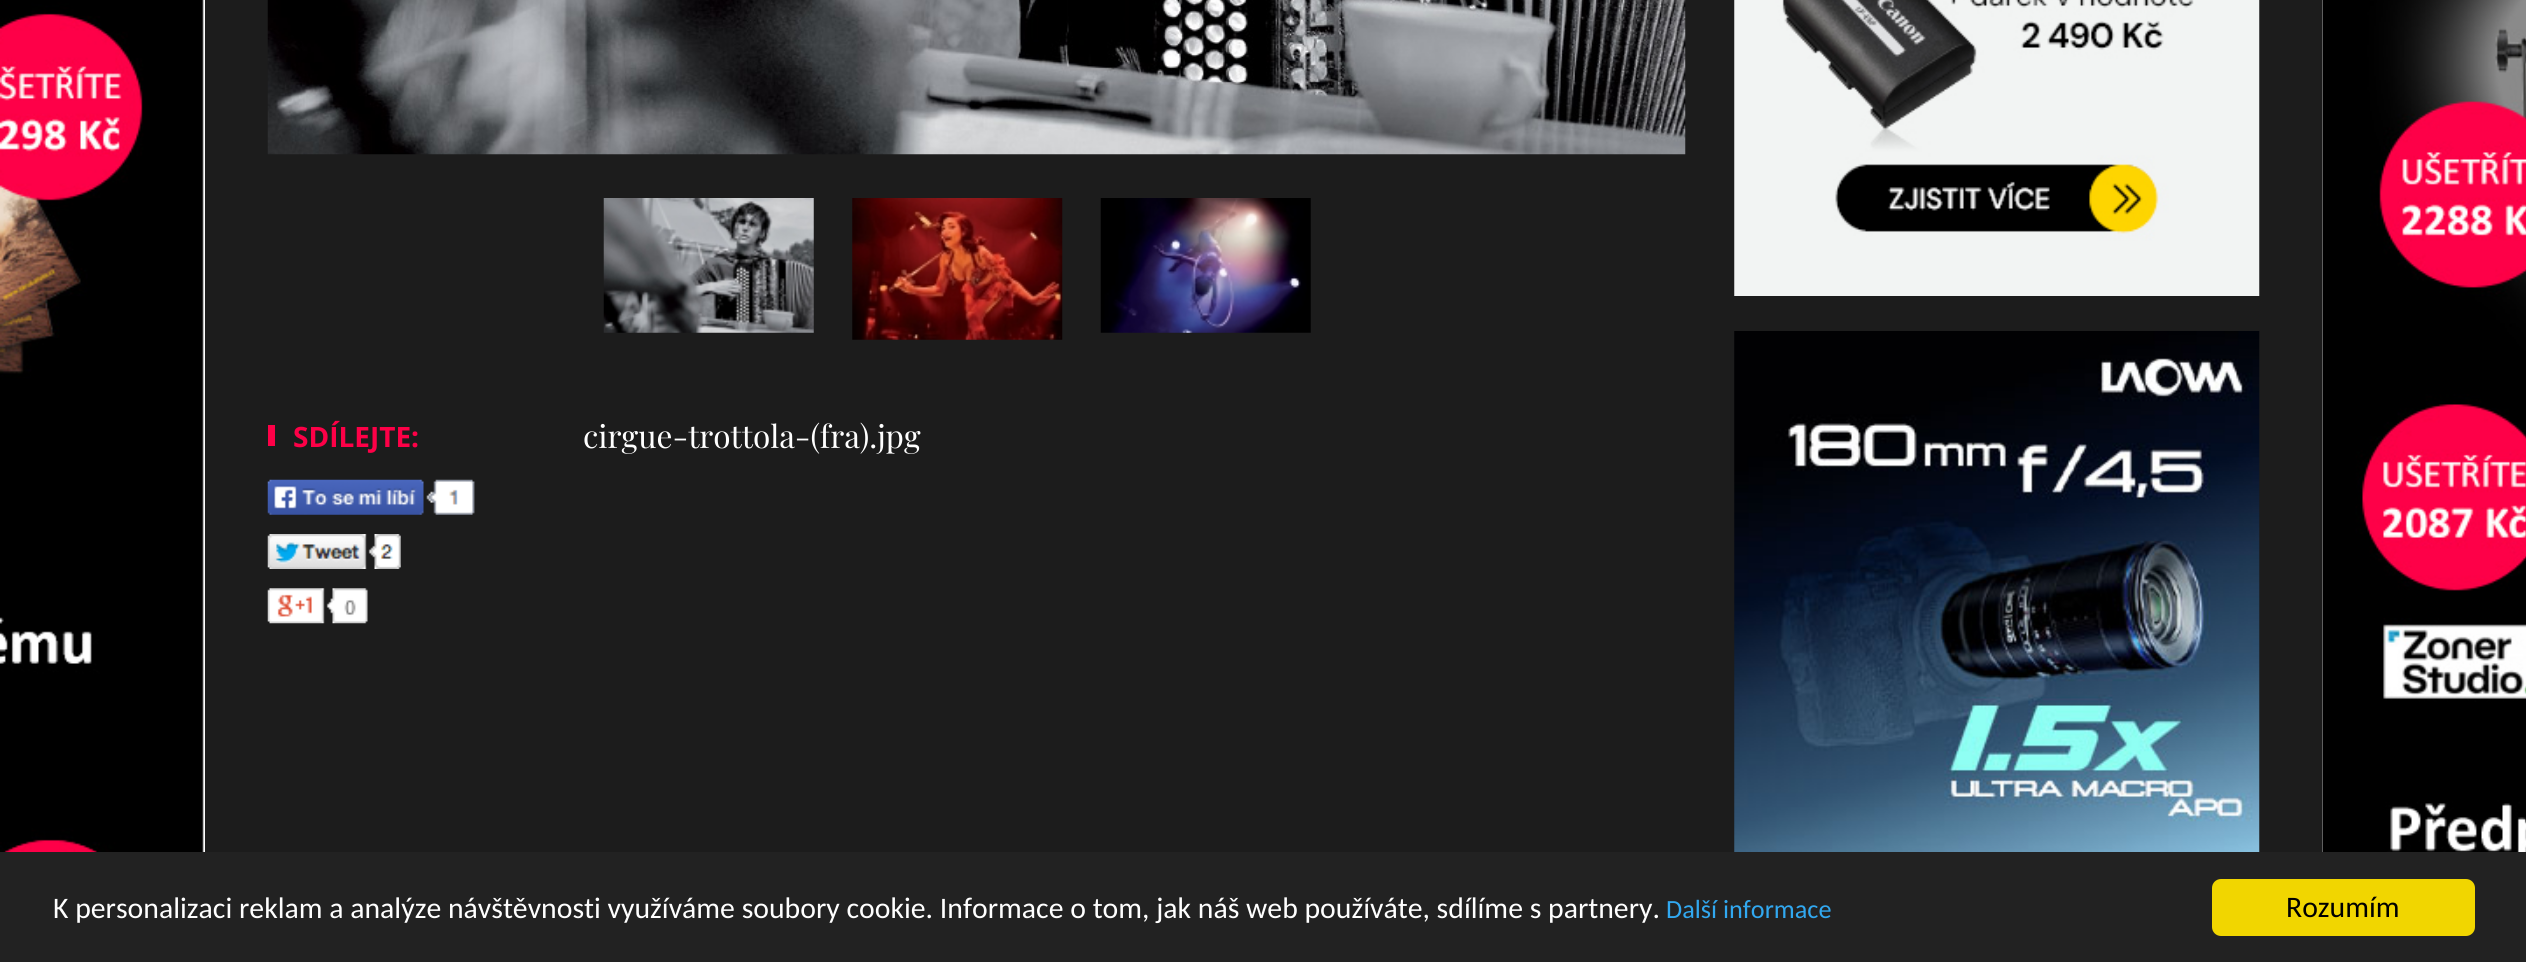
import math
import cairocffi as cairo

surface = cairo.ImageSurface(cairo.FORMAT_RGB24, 2526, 962)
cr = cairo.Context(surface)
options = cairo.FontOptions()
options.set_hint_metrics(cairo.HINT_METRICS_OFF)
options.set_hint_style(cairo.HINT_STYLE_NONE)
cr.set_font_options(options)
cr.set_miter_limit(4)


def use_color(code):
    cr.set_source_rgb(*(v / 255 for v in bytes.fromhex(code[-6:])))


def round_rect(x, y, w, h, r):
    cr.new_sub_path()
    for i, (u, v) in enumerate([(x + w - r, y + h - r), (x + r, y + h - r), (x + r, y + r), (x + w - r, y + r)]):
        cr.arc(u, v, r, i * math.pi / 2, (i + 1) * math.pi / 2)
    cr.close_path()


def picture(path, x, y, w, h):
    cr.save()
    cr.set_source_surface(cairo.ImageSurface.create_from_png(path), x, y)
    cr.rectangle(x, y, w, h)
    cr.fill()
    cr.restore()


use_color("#ffffff")
cr.paint()
picture("img1.png", 0, 0, 2526, 852)
use_color("#1c1c1c")
cr.rectangle(205, 0, 2117, 852)
cr.fill()
picture("img2.png", 267, 0, 1419, 155)
picture("img3.png", 603, 198, 211, 135)
picture("img4.png", 852, 198, 211, 142)
picture("img5.png", 1100, 198, 211, 135)
use_color("#fe0047")
cr.rectangle(268, 425, 7, 21)
cr.fill()
cr.select_font_face("Open Sans", cairo.FONT_SLANT_NORMAL, cairo.FONT_WEIGHT_BOLD)
cr.set_font_size(28)
cr.move_to(293, 447)
cr.show_text("SDÍLEJTE:")
picture("img6.png", 267, 479, 208, 36)
picture("img7.png", 267, 534, 134, 35)
picture("img8.png", 267, 588, 101, 36)
cr.select_font_face("Playfair Display")
cr.set_font_size(31.5)
use_color("#ffffff")
cr.move_to(583, 448)
cr.show_text("cirgue-trottola-(fra).jpg")
picture("img9.png", 1734, 0, 526, 296)
picture("img10.png", 1734, 331, 526, 521)
use_color("#222222")
cr.rectangle(0, 852, 2526, 110)
cr.fill()
cr.select_font_face("Carlito")
cr.set_font_size(29.75)
use_color("#ffffff")
cr.move_to(53, 918)
cr.show_text("K personalizaci reklam a analýze návštěvnosti využíváme soubory cookie. Informace o tom, jak náš web používáte, sdílíme s partnery.")
cr.set_font_size(26.25)
use_color("#31a8f0")
cr.move_to(1666, 918)
cr.show_text("Další informace")
use_color("#f1d600")
round_rect(2212, 879, 263, 57, 9)
cr.fill()
cr.set_font_size(29.75)
use_color("#000000")
cr.move_to(2286, 917)
cr.show_text("Rozumím")
surface.write_to_png("result.png")
